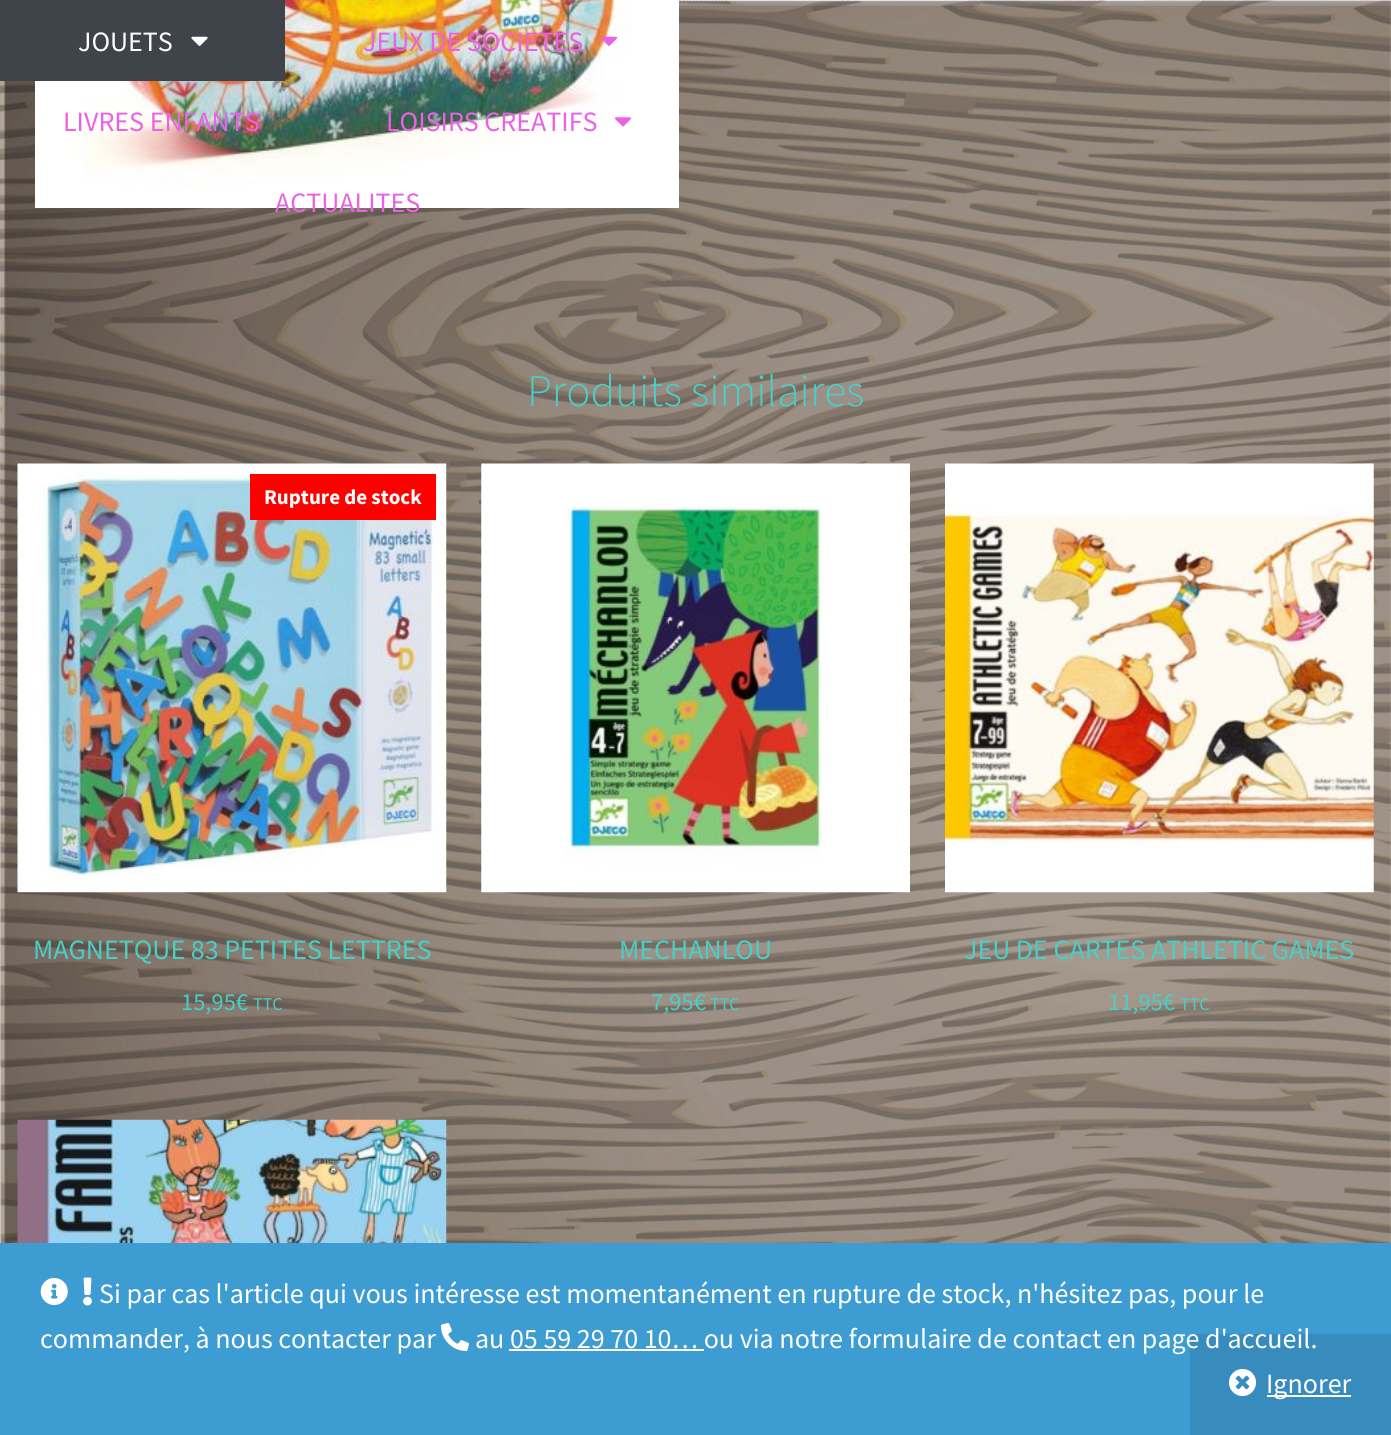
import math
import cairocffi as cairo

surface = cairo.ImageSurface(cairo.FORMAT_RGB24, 1391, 1435)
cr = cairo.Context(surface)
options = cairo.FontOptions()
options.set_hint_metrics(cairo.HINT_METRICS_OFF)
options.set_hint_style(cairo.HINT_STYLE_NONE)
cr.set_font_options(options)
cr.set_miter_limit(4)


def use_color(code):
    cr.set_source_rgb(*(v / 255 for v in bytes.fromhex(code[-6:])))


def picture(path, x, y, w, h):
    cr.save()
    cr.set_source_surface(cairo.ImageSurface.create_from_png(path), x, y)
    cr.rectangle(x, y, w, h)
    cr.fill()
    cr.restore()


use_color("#ffffff")
cr.paint()
picture("img1.png", 0, 0, 1391, 1243)
picture("img5.png", 35, 0, 644, 208)
use_color("#3f444b")
cr.rectangle(0, 0, 285, 81)
cr.fill()
cr.select_font_face("Source Sans Pro")
cr.set_font_size(28)
use_color("#ffffff")
cr.move_to(78, 51)
cr.show_text("JOUETS")
picture("img2.png", 191, 36, 17, 10)
use_color("#ea62e3")
cr.move_to(363, 51)
cr.show_text("JEUX DE SOCIETES")
picture("img3.png", 600, 36, 18, 10)
cr.move_to(63, 131)
cr.show_text("LIVRES ENFANTS")
cr.move_to(386, 131)
cr.show_text("LOISIRS CREATIFS")
picture("img4.png", 614, 117, 18, 10)
cr.move_to(275, 212)
cr.show_text("ACTUALITES")
cr.select_font_face("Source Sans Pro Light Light")
cr.set_font_size(45.25)
use_color("#49cec8")
cr.move_to(527, 406)
cr.show_text("Produits similaires")
picture("img6.png", 17, 463, 430, 430)
use_color("#ff0000")
cr.rectangle(250, 474, 186, 46)
cr.fill()
cr.select_font_face("Source Sans Pro", cairo.FONT_SLANT_NORMAL, cairo.FONT_WEIGHT_BOLD)
cr.set_font_size(21)
use_color("#ffffff")
cr.move_to(264, 504)
cr.show_text("Rupture de stock")
cr.select_font_face("Source Sans Pro")
cr.set_font_size(28)
use_color("#49cec8")
cr.move_to(33, 959)
cr.show_text("MAGNETQUE 83 PETITES LETTRES")
cr.set_font_size(24.5)
cr.move_to(181, 1010)
cr.show_text("15,95€")
cr.set_font_size(18)
cr.move_to(253, 1010)
cr.show_text("TTC")
picture("img7.png", 481, 463, 429, 430)
cr.set_font_size(28)
cr.move_to(619, 959)
cr.show_text("MECHANLOU")
cr.set_font_size(24.5)
cr.move_to(651, 1010)
cr.show_text("7,95€")
cr.set_font_size(18)
cr.move_to(710, 1010)
cr.show_text("TTC")
picture("img8.png", 945, 463, 429, 430)
cr.set_font_size(28)
cr.move_to(964, 959)
cr.show_text("JEU DE CARTES ATHLETIC GAMES")
cr.set_font_size(24.5)
cr.move_to(1108, 1010)
cr.show_text("11,95€")
cr.set_font_size(18)
cr.move_to(1180, 1010)
cr.show_text("TTC")
picture("img9.png", 17, 1119, 430, 124)
use_color("#3d9cd2")
cr.rectangle(0, 1243, 1391, 192)
cr.fill()
picture("img10.png", 40, 1277, 28, 29)
picture("img11.png", 83, 1277, 9, 29)
cr.set_font_size(28)
use_color("#ffffff")
cr.move_to(99, 1303)
cr.show_text("Si par cas l'article qui vous intéresse est momentanément en rupture de stock, n'hésitez pas, pour le")
cr.move_to(40, 1348)
cr.show_text("commander, à nous contacter par")
picture("img12.png", 441, 1323, 28, 28)
use_color("#378cbd")
cr.rectangle(1190, 1334, 201, 101)
cr.fill()
use_color("#ffffff")
cr.move_to(475, 1348)
cr.show_text("au 05 59 29 70 10… ou via notre formulaire de contact en page d'accueil.")
cr.rectangle(509, 1349, 195, 2)
cr.fill()
picture("img13.png", 1228, 1368, 29, 29)
cr.rectangle(1267, 1395, 84, 2)
cr.fill()
cr.move_to(1266, 1393)
cr.show_text("Ignorer")
surface.write_to_png("result.png")
